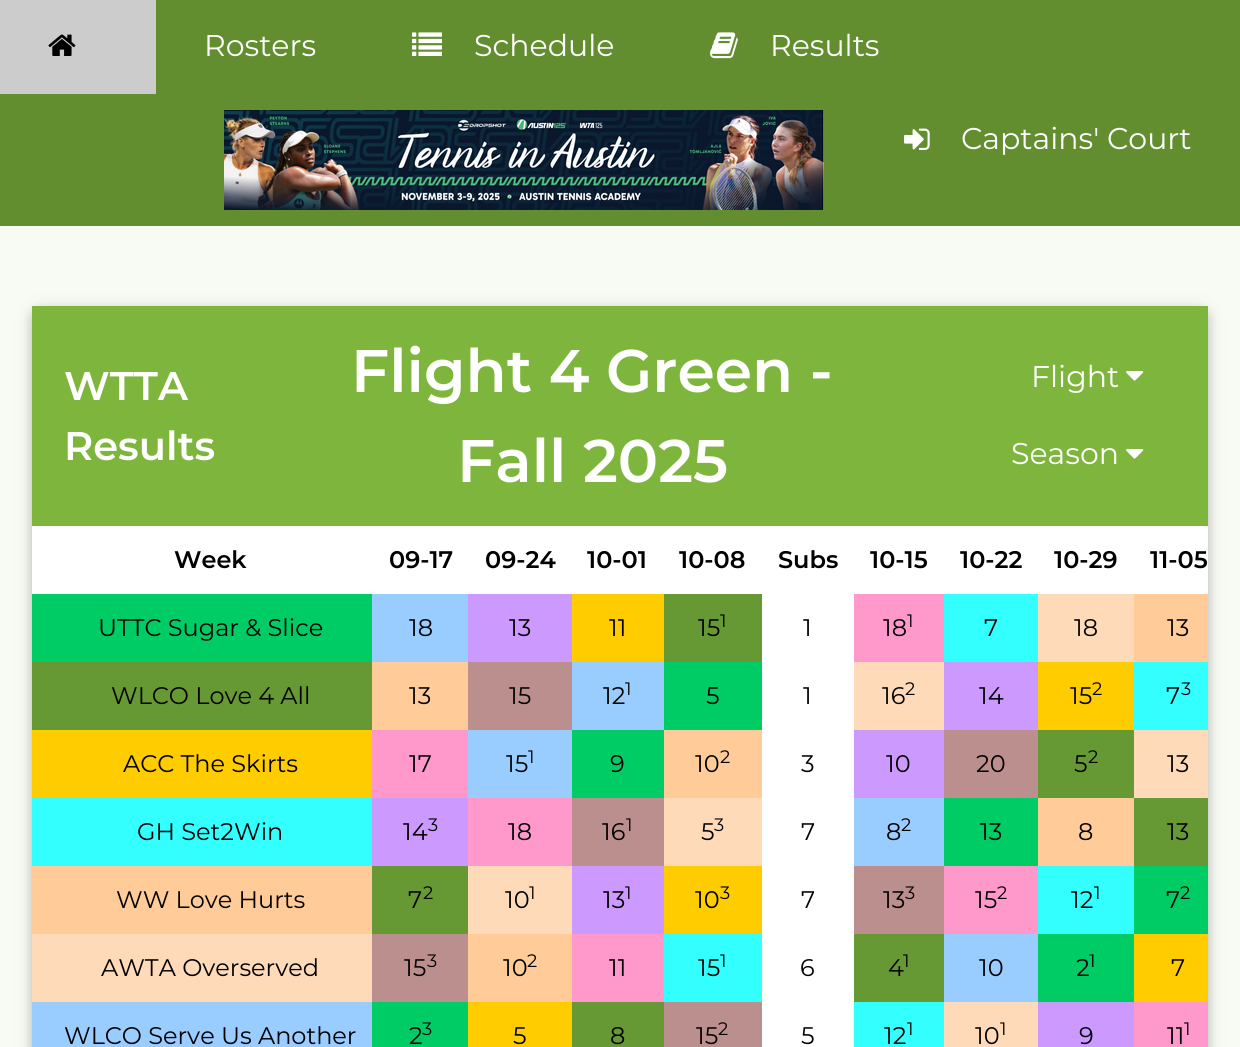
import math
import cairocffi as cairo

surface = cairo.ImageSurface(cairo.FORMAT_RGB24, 1240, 1047)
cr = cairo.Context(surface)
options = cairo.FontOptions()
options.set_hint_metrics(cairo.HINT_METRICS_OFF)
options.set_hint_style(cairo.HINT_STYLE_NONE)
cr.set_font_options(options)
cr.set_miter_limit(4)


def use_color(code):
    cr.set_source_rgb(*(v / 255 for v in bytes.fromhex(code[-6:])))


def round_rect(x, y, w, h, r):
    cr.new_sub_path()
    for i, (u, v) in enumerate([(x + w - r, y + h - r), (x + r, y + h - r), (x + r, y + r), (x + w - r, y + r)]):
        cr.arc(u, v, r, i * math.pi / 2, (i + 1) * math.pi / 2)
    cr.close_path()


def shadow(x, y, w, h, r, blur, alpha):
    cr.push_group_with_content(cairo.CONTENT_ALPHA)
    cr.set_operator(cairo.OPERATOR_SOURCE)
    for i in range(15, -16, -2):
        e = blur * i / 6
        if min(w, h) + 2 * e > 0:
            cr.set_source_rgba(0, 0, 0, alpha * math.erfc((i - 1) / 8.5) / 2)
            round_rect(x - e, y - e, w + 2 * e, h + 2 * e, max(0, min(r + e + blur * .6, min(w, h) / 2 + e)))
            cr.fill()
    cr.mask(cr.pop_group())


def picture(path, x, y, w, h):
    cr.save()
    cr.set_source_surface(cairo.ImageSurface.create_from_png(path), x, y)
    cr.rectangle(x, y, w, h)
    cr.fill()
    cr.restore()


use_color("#f8fbf4")
cr.paint()
use_color("#628e2f")
cr.rectangle(0, 0, 1240, 226)
cr.fill()
use_color("#cccccc")
cr.rectangle(0, 0, 156, 94)
cr.fill()
picture("img1.png", 48, 34, 28, 22)
cr.select_font_face("Montserrat")
cr.set_font_size(30)
use_color("#ffffff")
cr.move_to(204, 56)
cr.show_text("Rosters")
picture("img2.png", 412, 32, 30, 24)
cr.move_to(474, 56)
cr.show_text("Schedule")
picture("img3.png", 710, 32, 28, 27)
cr.move_to(770, 56)
cr.show_text("Results")
picture("img4.png", 224, 110, 600, 100)
picture("img5.png", 904, 128, 26, 22)
cr.move_to(961, 149)
cr.show_text("Captains' Court")
use_color("#000000")
shadow(32, 310, 1176, 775, 8, 10, 0.12)
shadow(32, 310, 1176, 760, 8, 5, 0.16)
use_color("#ffffff")
cr.rectangle(32, 526, 1176, 521)
cr.fill()
use_color("#7eb63d")
cr.rectangle(32, 306, 1176, 220)
cr.fill()
cr.select_font_face("Montserrat SemiBold")
cr.set_font_size(40)
use_color("#ffffff")
cr.move_to(64, 400)
cr.show_text("WTTA")
cr.move_to(64, 460)
cr.show_text("Results")
cr.set_font_size(60)
cr.move_to(351, 392)
cr.show_text("Flight 4 Green -")
cr.move_to(457, 482)
cr.show_text("Fall 2025")
cr.select_font_face("Montserrat")
cr.set_font_size(30)
cr.move_to(1031, 387)
cr.show_text("Flight")
picture("img6.png", 1126, 371, 18, 10)
cr.move_to(1011, 464)
cr.show_text("Season")
picture("img6.png", 1126, 449, 18, 10)
cr.select_font_face("Montserrat SemiBold")
cr.set_font_size(24)
use_color("#000000")
cr.move_to(174, 568)
cr.show_text("Week")
cr.move_to(389, 568)
cr.show_text("09-17")
cr.move_to(485, 568)
cr.show_text("09-24")
cr.move_to(587, 568)
cr.show_text("10-01")
cr.move_to(679, 568)
cr.show_text("10-08")
cr.move_to(778, 568)
cr.show_text("Subs")
cr.move_to(870, 568)
cr.show_text("10-15")
cr.move_to(960, 568)
cr.show_text("10-22")
cr.move_to(1054, 568)
cr.show_text("10-29")
cr.move_to(1150, 568)
cr.show_text("11-05")
use_color("#00cc66")
cr.rectangle(32, 594, 340, 68)
cr.fill()
cr.select_font_face("Montserrat")
use_color("#000000")
cr.move_to(98, 636)
cr.show_text("UTTC Sugar & Slice")
use_color("#99ccff")
cr.rectangle(372, 594, 96, 68)
cr.fill()
use_color("#000000")
cr.move_to(409, 636)
cr.show_text("18")
use_color("#cc99ff")
cr.rectangle(468, 594, 104, 68)
cr.fill()
use_color("#000000")
cr.move_to(509, 636)
cr.show_text("13")
use_color("#ffcc00")
cr.rectangle(572, 594, 92, 68)
cr.fill()
use_color("#000000")
cr.move_to(609, 636)
cr.show_text("11")
use_color("#669933")
cr.rectangle(664, 594, 98, 68)
cr.fill()
use_color("#000000")
cr.move_to(698, 636)
cr.show_text("15")
cr.set_font_size(18)
cr.move_to(720, 627)
cr.show_text("1")
cr.set_font_size(24)
cr.move_to(803, 636)
cr.show_text("1")
use_color("#ff99cc")
cr.rectangle(854, 594, 90, 68)
cr.fill()
use_color("#000000")
cr.move_to(883, 636)
cr.show_text("18")
cr.set_font_size(18)
cr.move_to(907, 627)
cr.show_text("1")
use_color("#33ffff")
cr.rectangle(944, 594, 94, 68)
cr.fill()
cr.set_font_size(24)
use_color("#000000")
cr.move_to(984, 636)
cr.show_text("7")
use_color("#ffdab9")
cr.rectangle(1038, 594, 96, 68)
cr.fill()
use_color("#000000")
cr.move_to(1074, 636)
cr.show_text("18")
use_color("#ffcc99")
cr.rectangle(1134, 594, 74, 68)
cr.fill()
use_color("#000000")
cr.move_to(1167, 636)
cr.show_text("13")
use_color("#669933")
cr.rectangle(32, 662, 340, 68)
cr.fill()
use_color("#000000")
cr.move_to(111, 704)
cr.show_text("WLCO Love 4 All")
use_color("#ffcc99")
cr.rectangle(372, 662, 96, 68)
cr.fill()
use_color("#000000")
cr.move_to(409, 704)
cr.show_text("13")
use_color("#bc8f8f")
cr.rectangle(468, 662, 104, 68)
cr.fill()
use_color("#000000")
cr.move_to(509, 704)
cr.show_text("15")
use_color("#99ccff")
cr.rectangle(572, 662, 92, 68)
cr.fill()
use_color("#000000")
cr.move_to(603, 704)
cr.show_text("12")
cr.set_font_size(18)
cr.move_to(625, 695)
cr.show_text("1")
use_color("#00cc66")
cr.rectangle(664, 662, 98, 68)
cr.fill()
cr.set_font_size(24)
use_color("#000000")
cr.move_to(706, 704)
cr.show_text("5")
cr.move_to(803, 704)
cr.show_text("1")
use_color("#ffdab9")
cr.rectangle(854, 662, 90, 68)
cr.fill()
use_color("#000000")
cr.move_to(882, 704)
cr.show_text("16")
cr.set_font_size(18)
cr.move_to(905, 695)
cr.show_text("2")
use_color("#cc99ff")
cr.rectangle(944, 662, 94, 68)
cr.fill()
cr.set_font_size(24)
use_color("#000000")
cr.move_to(979, 704)
cr.show_text("14")
use_color("#ffcc00")
cr.rectangle(1038, 662, 96, 68)
cr.fill()
use_color("#000000")
cr.move_to(1070, 704)
cr.show_text("15")
cr.set_font_size(18)
cr.move_to(1092, 695)
cr.show_text("2")
use_color("#33ffff")
cr.rectangle(1134, 662, 74, 68)
cr.fill()
cr.set_font_size(24)
use_color("#000000")
cr.move_to(1166, 704)
cr.show_text("7")
cr.set_font_size(18)
cr.move_to(1181, 695)
cr.show_text("3")
use_color("#ffcc00")
cr.rectangle(32, 730, 340, 68)
cr.fill()
cr.set_font_size(24)
use_color("#000000")
cr.move_to(123, 772)
cr.show_text("ACC The Skirts")
use_color("#ff99cc")
cr.rectangle(372, 730, 96, 68)
cr.fill()
use_color("#000000")
cr.move_to(409, 772)
cr.show_text("17")
use_color("#99ccff")
cr.rectangle(468, 730, 104, 68)
cr.fill()
use_color("#000000")
cr.move_to(506, 772)
cr.show_text("15")
cr.set_font_size(18)
cr.move_to(528, 763)
cr.show_text("1")
use_color("#00cc66")
cr.rectangle(572, 730, 92, 68)
cr.fill()
cr.set_font_size(24)
use_color("#000000")
cr.move_to(610, 772)
cr.show_text("9")
use_color("#ffcc99")
cr.rectangle(664, 730, 98, 68)
cr.fill()
use_color("#000000")
cr.move_to(695, 772)
cr.show_text("10")
cr.set_font_size(18)
cr.move_to(720, 763)
cr.show_text("2")
cr.set_font_size(24)
cr.move_to(801, 772)
cr.show_text("3")
use_color("#cc99ff")
cr.rectangle(854, 730, 90, 68)
cr.fill()
use_color("#000000")
cr.move_to(886, 772)
cr.show_text("10")
use_color("#bc8f8f")
cr.rectangle(944, 730, 94, 68)
cr.fill()
use_color("#000000")
cr.move_to(976, 772)
cr.show_text("20")
use_color("#669933")
cr.rectangle(1038, 730, 96, 68)
cr.fill()
use_color("#000000")
cr.move_to(1074, 772)
cr.show_text("5")
cr.set_font_size(18)
cr.move_to(1088, 763)
cr.show_text("2")
use_color("#ffdab9")
cr.rectangle(1134, 730, 74, 68)
cr.fill()
cr.set_font_size(24)
use_color("#000000")
cr.move_to(1167, 772)
cr.show_text("13")
use_color("#33ffff")
cr.rectangle(32, 798, 340, 68)
cr.fill()
use_color("#000000")
cr.move_to(137, 840)
cr.show_text("GH Set2Win")
use_color("#cc99ff")
cr.rectangle(372, 798, 96, 68)
cr.fill()
use_color("#000000")
cr.move_to(403, 840)
cr.show_text("14")
cr.set_font_size(18)
cr.move_to(428, 831)
cr.show_text("3")
use_color("#ff99cc")
cr.rectangle(468, 798, 104, 68)
cr.fill()
cr.set_font_size(24)
use_color("#000000")
cr.move_to(508, 840)
cr.show_text("18")
use_color("#bc8f8f")
cr.rectangle(572, 798, 92, 68)
cr.fill()
use_color("#000000")
cr.move_to(602, 840)
cr.show_text("16")
cr.set_font_size(18)
cr.move_to(626, 831)
cr.show_text("1")
use_color("#ffdab9")
cr.rectangle(664, 798, 98, 68)
cr.fill()
cr.set_font_size(24)
use_color("#000000")
cr.move_to(701, 840)
cr.show_text("5")
cr.set_font_size(18)
cr.move_to(714, 831)
cr.show_text("3")
cr.set_font_size(24)
cr.move_to(801, 840)
cr.show_text("7")
use_color("#99ccff")
cr.rectangle(854, 798, 90, 68)
cr.fill()
use_color("#000000")
cr.move_to(886, 840)
cr.show_text("8")
cr.set_font_size(18)
cr.move_to(901, 831)
cr.show_text("2")
use_color("#00cc66")
cr.rectangle(944, 798, 94, 68)
cr.fill()
cr.set_font_size(24)
use_color("#000000")
cr.move_to(980, 840)
cr.show_text("13")
use_color("#ffcc99")
cr.rectangle(1038, 798, 96, 68)
cr.fill()
use_color("#000000")
cr.move_to(1078, 840)
cr.show_text("8")
use_color("#669933")
cr.rectangle(1134, 798, 74, 68)
cr.fill()
use_color("#000000")
cr.move_to(1167, 840)
cr.show_text("13")
use_color("#ffcc99")
cr.rectangle(32, 866, 340, 68)
cr.fill()
use_color("#000000")
cr.move_to(116, 908)
cr.show_text("WW Love Hurts")
use_color("#669933")
cr.rectangle(372, 866, 96, 68)
cr.fill()
use_color("#000000")
cr.move_to(408, 908)
cr.show_text("7")
cr.set_font_size(18)
cr.move_to(423, 899)
cr.show_text("2")
use_color("#ffdab9")
cr.rectangle(468, 866, 104, 68)
cr.fill()
cr.set_font_size(24)
use_color("#000000")
cr.move_to(505, 908)
cr.show_text("10")
cr.set_font_size(18)
cr.move_to(529, 899)
cr.show_text("1")
use_color("#cc99ff")
cr.rectangle(572, 866, 92, 68)
cr.fill()
cr.set_font_size(24)
use_color("#000000")
cr.move_to(603, 908)
cr.show_text("13")
cr.set_font_size(18)
cr.move_to(625, 899)
cr.show_text("1")
use_color("#ffcc00")
cr.rectangle(664, 866, 98, 68)
cr.fill()
cr.set_font_size(24)
use_color("#000000")
cr.move_to(695, 908)
cr.show_text("10")
cr.set_font_size(18)
cr.move_to(720, 899)
cr.show_text("3")
cr.set_font_size(24)
cr.move_to(801, 908)
cr.show_text("7")
use_color("#bc8f8f")
cr.rectangle(854, 866, 90, 68)
cr.fill()
use_color("#000000")
cr.move_to(883, 908)
cr.show_text("13")
cr.set_font_size(18)
cr.move_to(905, 899)
cr.show_text("3")
use_color("#ff99cc")
cr.rectangle(944, 866, 94, 68)
cr.fill()
cr.set_font_size(24)
use_color("#000000")
cr.move_to(975, 908)
cr.show_text("15")
cr.set_font_size(18)
cr.move_to(997, 899)
cr.show_text("2")
use_color("#33ffff")
cr.rectangle(1038, 866, 96, 68)
cr.fill()
cr.set_font_size(24)
use_color("#000000")
cr.move_to(1071, 908)
cr.show_text("12")
cr.set_font_size(18)
cr.move_to(1094, 899)
cr.show_text("1")
use_color("#00cc66")
cr.rectangle(1134, 866, 74, 68)
cr.fill()
cr.set_font_size(24)
use_color("#000000")
cr.move_to(1166, 908)
cr.show_text("7")
cr.set_font_size(18)
cr.move_to(1180, 899)
cr.show_text("2")
use_color("#ffdab9")
cr.rectangle(32, 934, 340, 68)
cr.fill()
cr.set_font_size(24)
use_color("#000000")
cr.move_to(101, 976)
cr.show_text("AWTA Overserved")
use_color("#bc8f8f")
cr.rectangle(372, 934, 96, 68)
cr.fill()
use_color("#000000")
cr.move_to(404, 976)
cr.show_text("15")
cr.set_font_size(18)
cr.move_to(427, 967)
cr.show_text("3")
use_color("#ffcc99")
cr.rectangle(468, 934, 104, 68)
cr.fill()
cr.set_font_size(24)
use_color("#000000")
cr.move_to(503, 976)
cr.show_text("10")
cr.set_font_size(18)
cr.move_to(527, 967)
cr.show_text("2")
use_color("#ff99cc")
cr.rectangle(572, 934, 92, 68)
cr.fill()
cr.set_font_size(24)
use_color("#000000")
cr.move_to(609, 976)
cr.show_text("11")
use_color("#33ffff")
cr.rectangle(664, 934, 98, 68)
cr.fill()
use_color("#000000")
cr.move_to(698, 976)
cr.show_text("15")
cr.set_font_size(18)
cr.move_to(720, 967)
cr.show_text("1")
cr.set_font_size(24)
cr.move_to(800, 976)
cr.show_text("6")
use_color("#669933")
cr.rectangle(854, 934, 90, 68)
cr.fill()
use_color("#000000")
cr.move_to(888, 976)
cr.show_text("4")
cr.set_font_size(18)
cr.move_to(903, 967)
cr.show_text("1")
use_color("#99ccff")
cr.rectangle(944, 934, 94, 68)
cr.fill()
cr.set_font_size(24)
use_color("#000000")
cr.move_to(979, 976)
cr.show_text("10")
use_color("#00cc66")
cr.rectangle(1038, 934, 96, 68)
cr.fill()
use_color("#000000")
cr.move_to(1076, 976)
cr.show_text("2")
cr.set_font_size(18)
cr.move_to(1089, 967)
cr.show_text("1")
use_color("#ffcc00")
cr.rectangle(1134, 934, 74, 68)
cr.fill()
cr.set_font_size(24)
use_color("#000000")
cr.move_to(1171, 976)
cr.show_text("7")
use_color("#99ccff")
cr.rectangle(32, 1002, 340, 45)
cr.fill()
use_color("#000000")
cr.move_to(64, 1044)
cr.show_text("WLCO Serve Us Another")
use_color("#00cc66")
cr.rectangle(372, 1002, 96, 45)
cr.fill()
use_color("#000000")
cr.move_to(409, 1044)
cr.show_text("2")
cr.set_font_size(18)
cr.move_to(422, 1035)
cr.show_text("3")
use_color("#ffcc00")
cr.rectangle(468, 1002, 104, 45)
cr.fill()
cr.set_font_size(24)
use_color("#000000")
cr.move_to(513, 1044)
cr.show_text("5")
use_color("#669933")
cr.rectangle(572, 1002, 92, 45)
cr.fill()
use_color("#000000")
cr.move_to(610, 1044)
cr.show_text("8")
use_color("#bc8f8f")
cr.rectangle(664, 1002, 98, 45)
cr.fill()
use_color("#000000")
cr.move_to(696, 1044)
cr.show_text("15")
cr.set_font_size(18)
cr.move_to(718, 1035)
cr.show_text("2")
cr.set_font_size(24)
cr.move_to(801, 1044)
cr.show_text("5")
use_color("#33ffff")
cr.rectangle(854, 1002, 90, 45)
cr.fill()
use_color("#000000")
cr.move_to(884, 1044)
cr.show_text("12")
cr.set_font_size(18)
cr.move_to(907, 1035)
cr.show_text("1")
use_color("#ffdab9")
cr.rectangle(944, 1002, 94, 45)
cr.fill()
cr.set_font_size(24)
use_color("#000000")
cr.move_to(975, 1044)
cr.show_text("10")
cr.set_font_size(18)
cr.move_to(1000, 1035)
cr.show_text("1")
use_color("#cc99ff")
cr.rectangle(1038, 1002, 96, 45)
cr.fill()
cr.set_font_size(24)
use_color("#000000")
cr.move_to(1079, 1044)
cr.show_text("9")
use_color("#ff99cc")
cr.rectangle(1134, 1002, 74, 45)
cr.fill()
use_color("#000000")
cr.move_to(1167, 1044)
cr.show_text("11")
cr.set_font_size(18)
cr.move_to(1184, 1035)
cr.show_text("1")
surface.write_to_png("result.png")
